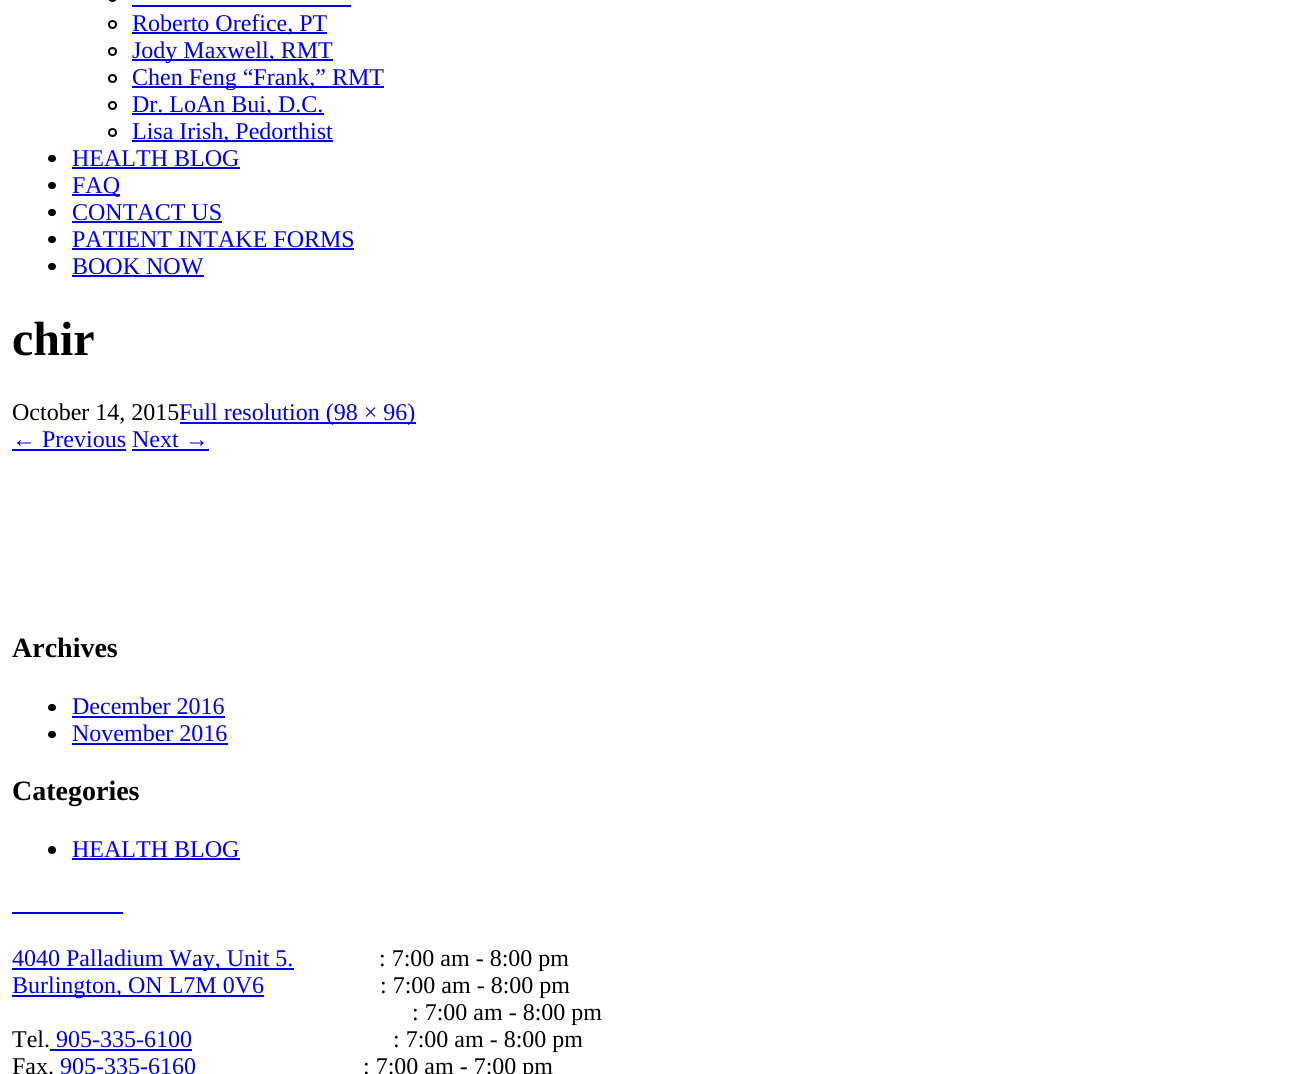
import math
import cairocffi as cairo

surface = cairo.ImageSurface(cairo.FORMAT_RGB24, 1302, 1074)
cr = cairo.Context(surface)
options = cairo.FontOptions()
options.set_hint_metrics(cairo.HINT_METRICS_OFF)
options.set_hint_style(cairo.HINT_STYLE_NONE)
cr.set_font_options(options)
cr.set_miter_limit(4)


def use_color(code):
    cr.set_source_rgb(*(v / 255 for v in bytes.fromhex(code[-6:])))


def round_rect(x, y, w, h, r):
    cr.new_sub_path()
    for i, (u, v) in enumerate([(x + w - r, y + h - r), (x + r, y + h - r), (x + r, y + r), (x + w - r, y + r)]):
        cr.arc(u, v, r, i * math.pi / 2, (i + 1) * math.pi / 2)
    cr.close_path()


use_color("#ffffff")
cr.paint()
cr.arc(112.5, -2.5, 3.5, 0, 2 * math.pi)
use_color("#000000")
cr.stroke()
use_color("#0000ee")
cr.rectangle(132, 5, 219, 2)
cr.fill()
cr.arc(112.5, 24.5, 3.5, 0, 2 * math.pi)
use_color("#000000")
cr.stroke()
use_color("#0000ee")
cr.rectangle(132, 32, 195, 2)
cr.fill()
cr.select_font_face("Liberation Serif")
cr.set_font_size(24)
cr.move_to(132, 31)
cr.show_text("Roberto Orefice, PT")
cr.new_path()
cr.arc(112.5, 51.5, 3.5, 0, 2 * math.pi)
use_color("#000000")
cr.stroke()
use_color("#0000ee")
cr.rectangle(132, 59, 201, 2)
cr.fill()
cr.move_to(132, 58)
cr.show_text("Jody Maxwell, RMT")
cr.new_path()
cr.arc(112.5, 78.5, 3.5, 0, 2 * math.pi)
use_color("#000000")
cr.stroke()
use_color("#0000ee")
cr.rectangle(132, 86, 252, 2)
cr.fill()
cr.move_to(132, 85)
cr.show_text("Chen Feng “Frank,” RMT")
cr.new_path()
cr.arc(112.5, 105.5, 3.5, 0, 2 * math.pi)
use_color("#000000")
cr.stroke()
use_color("#0000ee")
cr.rectangle(132, 113, 192, 2)
cr.fill()
cr.move_to(132, 112)
cr.show_text("Dr. LoAn Bui, D.C.")
cr.new_path()
cr.arc(112.5, 132.5, 3.5, 0, 2 * math.pi)
use_color("#000000")
cr.stroke()
use_color("#0000ee")
cr.rectangle(132, 140, 201, 2)
cr.fill()
cr.move_to(132, 139)
cr.show_text("Lisa Irish, Pedorthist")
use_color("#000000")
round_rect(48, 155, 8, 7, 3.5)
cr.fill()
use_color("#0000ee")
cr.move_to(72, 166)
cr.show_text("HEALTH BLOG")
cr.rectangle(72, 167, 168, 2)
cr.fill()
use_color("#000000")
round_rect(48, 182, 8, 7, 3.5)
cr.fill()
use_color("#0000ee")
cr.rectangle(72, 194, 48, 2)
cr.fill()
cr.move_to(72, 193)
cr.show_text("FAQ")
use_color("#000000")
round_rect(48, 209, 8, 7, 3.5)
cr.fill()
use_color("#0000ee")
cr.move_to(72, 220)
cr.show_text("CONTACT US")
cr.rectangle(72, 221, 150, 2)
cr.fill()
use_color("#000000")
round_rect(48, 236, 8, 7, 3.5)
cr.fill()
use_color("#0000ee")
cr.move_to(72, 247)
cr.show_text("PATIENT INTAKE FORMS")
cr.rectangle(72, 248, 282, 2)
cr.fill()
use_color("#000000")
round_rect(48, 263, 8, 7, 3.5)
cr.fill()
use_color("#0000ee")
cr.move_to(72, 274)
cr.show_text("BOOK NOW")
cr.rectangle(72, 275, 132, 2)
cr.fill()
cr.select_font_face("Liberation Serif", cairo.FONT_SLANT_NORMAL, cairo.FONT_WEIGHT_BOLD)
cr.set_font_size(48)
use_color("#000000")
cr.move_to(12, 355)
cr.show_text("chir")
cr.select_font_face("Liberation Serif")
cr.set_font_size(24)
cr.move_to(12, 420)
cr.show_text("October 14, 2015")
use_color("#0000ee")
cr.rectangle(180, 422, 236, 2)
cr.fill()
cr.move_to(179, 420)
cr.show_text("Full resolution (98 × 96)")
cr.move_to(12, 447)
cr.show_text("← Previous Next →")
cr.rectangle(12, 449, 114, 2)
cr.fill()
cr.rectangle(132, 449, 77, 2)
cr.fill()
cr.select_font_face("Liberation Serif", cairo.FONT_SLANT_NORMAL, cairo.FONT_WEIGHT_BOLD)
cr.set_font_size(28)
use_color("#000000")
cr.move_to(12, 657)
cr.show_text("Archives")
round_rect(48, 704, 8, 7, 3.5)
cr.fill()
cr.select_font_face("Liberation Serif")
cr.set_font_size(24)
use_color("#0000ee")
cr.move_to(72, 714)
cr.show_text("December 2016")
cr.rectangle(72, 716, 153, 2)
cr.fill()
use_color("#000000")
round_rect(48, 731, 8, 7, 3.5)
cr.fill()
use_color("#0000ee")
cr.move_to(72, 741)
cr.show_text("November 2016")
cr.rectangle(72, 743, 156, 2)
cr.fill()
cr.select_font_face("Liberation Serif", cairo.FONT_SLANT_NORMAL, cairo.FONT_WEIGHT_BOLD)
cr.set_font_size(28)
use_color("#000000")
cr.move_to(12, 800)
cr.show_text("Categories")
cr.new_path()
cr.arc(52, 850, 4, 0, 2 * math.pi)
cr.fill()
cr.select_font_face("Liberation Serif")
cr.set_font_size(24)
use_color("#0000ee")
cr.move_to(72, 857)
cr.show_text("HEALTH BLOG")
cr.rectangle(72, 858, 168, 2)
cr.fill()
cr.rectangle(12, 912, 111, 2)
cr.fill()
cr.rectangle(12, 968, 282, 2)
cr.fill()
cr.move_to(12, 966)
cr.show_text("4040 Palladium Way, Unit 5.")
cr.rectangle(12, 995, 252, 2)
cr.fill()
cr.move_to(12, 993)
cr.show_text("Burlington, ON L7M 0V6")
use_color("#000000")
cr.move_to(12, 1047)
cr.show_text("Tel.")
use_color("#0000ee")
cr.move_to(56, 1047)
cr.show_text("905-335-6100")
cr.rectangle(50, 1049, 142, 2)
cr.fill()
use_color("#000000")
cr.move_to(12, 1074)
cr.show_text("Fax.")
use_color("#0000ee")
cr.move_to(60, 1074)
cr.show_text("905-335-6160")
use_color("#000000")
cr.move_to(379, 966)
cr.show_text(": 7:00 am - 8:00 pm")
cr.move_to(380, 993)
cr.show_text(": 7:00 am - 8:00 pm")
cr.move_to(412, 1020)
cr.show_text(": 7:00 am - 8:00 pm")
cr.move_to(393, 1047)
cr.show_text(": 7:00 am - 8:00 pm")
cr.move_to(363, 1074)
cr.show_text(": 7:00 am - 7:00 pm")
surface.write_to_png("result.png")
